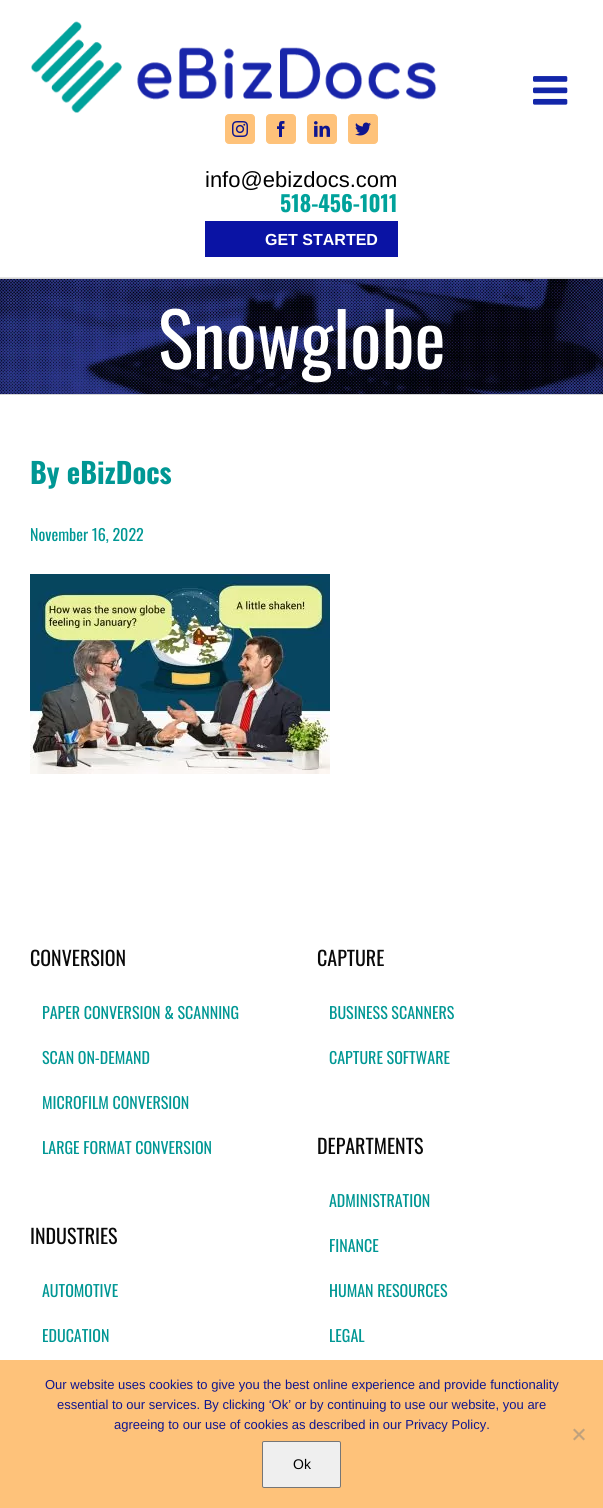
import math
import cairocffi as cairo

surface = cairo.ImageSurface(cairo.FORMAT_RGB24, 603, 1508)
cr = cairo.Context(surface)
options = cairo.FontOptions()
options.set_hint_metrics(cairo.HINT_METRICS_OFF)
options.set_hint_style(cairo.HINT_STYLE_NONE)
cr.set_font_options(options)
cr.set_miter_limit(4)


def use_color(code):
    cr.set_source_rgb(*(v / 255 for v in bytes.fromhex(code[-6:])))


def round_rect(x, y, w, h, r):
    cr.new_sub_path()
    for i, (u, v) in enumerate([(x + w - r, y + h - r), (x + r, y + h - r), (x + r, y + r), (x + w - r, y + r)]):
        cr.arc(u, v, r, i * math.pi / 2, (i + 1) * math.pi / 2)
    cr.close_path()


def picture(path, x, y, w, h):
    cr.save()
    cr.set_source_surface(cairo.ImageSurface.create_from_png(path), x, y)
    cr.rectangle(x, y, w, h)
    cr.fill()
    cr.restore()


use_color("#ffffff")
cr.paint()
use_color("#e5e5e5")
cr.rectangle(0, 277, 603, 1)
cr.fill()
picture("img1.png", 533, 76, 35, 29)
picture("img2.png", 31, 21, 406, 92)
use_color("#fec27a")
round_rect(225.5, 114.5, 29, 29, 3.5)
cr.fill_preserve()
cr.set_line_width(1)
cr.stroke()
picture("img3.png", 232, 121, 16, 16)
round_rect(266.5, 114.5, 29, 29, 3.5)
cr.fill_preserve()
cr.stroke()
picture("img4.png", 277, 121, 8, 16)
round_rect(307.5, 114.5, 29, 29, 3.5)
cr.fill_preserve()
cr.stroke()
picture("img5.png", 314, 121, 16, 16)
round_rect(348.5, 114.5, 29, 29, 3.5)
cr.fill_preserve()
cr.stroke()
picture("img6.png", 355, 122, 16, 14)
cr.select_font_face("Liberation Sans")
cr.set_font_size(22)
use_color("#000000")
cr.move_to(205, 187)
cr.show_text("info@ebizdocs.com")
cr.select_font_face("Oswald", cairo.FONT_SLANT_NORMAL, cairo.FONT_WEIGHT_BOLD)
use_color("#00a29b")
cr.move_to(280, 212)
cr.show_text("518-456-1011")
use_color("#0a13a4")
cr.rectangle(205, 221, 193, 36)
cr.fill()
cr.select_font_face("Liberation Sans", cairo.FONT_SLANT_NORMAL, cairo.FONT_WEIGHT_BOLD)
cr.set_font_size(16)
use_color("#ffffff")
cr.move_to(265, 245)
cr.show_text("GET STARTED")
picture("img7.png", 0, 279, 603, 115)
use_color("#d2d3d4")
cr.rectangle(0, 278, 603, 1)
cr.fill()
cr.rectangle(0, 394, 603, 1)
cr.fill()
cr.select_font_face("Oswald")
cr.set_font_size(74)
use_color("#ffffff")
cr.move_to(158, 369)
cr.show_text("Snowglobe")
cr.select_font_face("Oswald", cairo.FONT_SLANT_NORMAL, cairo.FONT_WEIGHT_BOLD)
cr.set_font_size(28.5)
use_color("#009794")
cr.move_to(30, 484)
cr.show_text("By eBizDocs")
cr.select_font_face("Oswald")
cr.set_font_size(16)
cr.move_to(30, 541)
cr.show_text("November 16, 2022")
picture("img8.png", 30, 574, 300, 200)
cr.set_font_size(20)
use_color("#0a0a0a")
cr.move_to(30, 966)
cr.show_text("CONVERSION")
cr.set_font_size(16)
use_color("#009794")
cr.move_to(42, 1019)
cr.show_text("PAPER CONVERSION & SCANNING")
cr.move_to(42, 1064)
cr.show_text("SCAN ON-DEMAND")
cr.move_to(42, 1109)
cr.show_text("MICROFILM CONVERSION")
cr.move_to(42, 1154)
cr.show_text("LARGE FORMAT CONVERSION")
cr.set_font_size(20)
use_color("#0a0a0a")
cr.move_to(30, 1244)
cr.show_text("INDUSTRIES")
cr.set_font_size(16)
use_color("#009794")
cr.move_to(42, 1297)
cr.show_text("AUTOMOTIVE")
cr.move_to(42, 1342)
cr.show_text("EDUCATION")
cr.set_font_size(20)
use_color("#0a0a0a")
cr.move_to(317, 966)
cr.show_text("CAPTURE")
cr.set_font_size(16)
use_color("#009794")
cr.move_to(329, 1019)
cr.show_text("BUSINESS SCANNERS")
cr.move_to(329, 1064)
cr.show_text("CAPTURE SOFTWARE")
cr.set_font_size(20)
use_color("#0a0a0a")
cr.move_to(317, 1154)
cr.show_text("DEPARTMENTS")
cr.set_font_size(16)
use_color("#009794")
cr.move_to(329, 1207)
cr.show_text("ADMINISTRATION")
cr.move_to(329, 1252)
cr.show_text("FINANCE")
cr.move_to(329, 1297)
cr.show_text("HUMAN RESOURCES")
cr.move_to(329, 1342)
cr.show_text("LEGAL")
use_color("#fec27a")
cr.rectangle(0, 1360, 603, 148)
cr.fill()
cr.select_font_face("Liberation Sans")
cr.set_font_size(13)
use_color("#0f158f")
cr.move_to(45, 1389)
cr.show_text("Our website uses cookies to give you the best online experience and provide functionality")
cr.move_to(57, 1409)
cr.show_text("essential to our services. By clicking ‘Ok’ or by continuing to use our website, you are")
cr.move_to(114, 1429)
cr.show_text("agreeing to our use of cookies as described in our Privacy Policy.")
use_color("#bfa17d")
cr.new_path()
cr.move_to(583.5, 1428.5)
cr.line_to(585, 1430)
cr.line_to(574.5, 1440.5)
cr.line_to(573, 1439)
cr.close_path()
cr.fill()
cr.new_path()
cr.move_to(573, 1430)
cr.line_to(574.5, 1428.5)
cr.line_to(585, 1439)
cr.line_to(583.5, 1440.5)
cr.close_path()
cr.fill()
use_color("#efefef")
round_rect(262.5, 1441.5, 78, 46, 1.5)
cr.fill_preserve()
use_color("#767676")
cr.stroke()
cr.set_font_size(14)
use_color("#000000")
cr.move_to(293, 1469)
cr.show_text("Ok")
surface.write_to_png("result.png")
